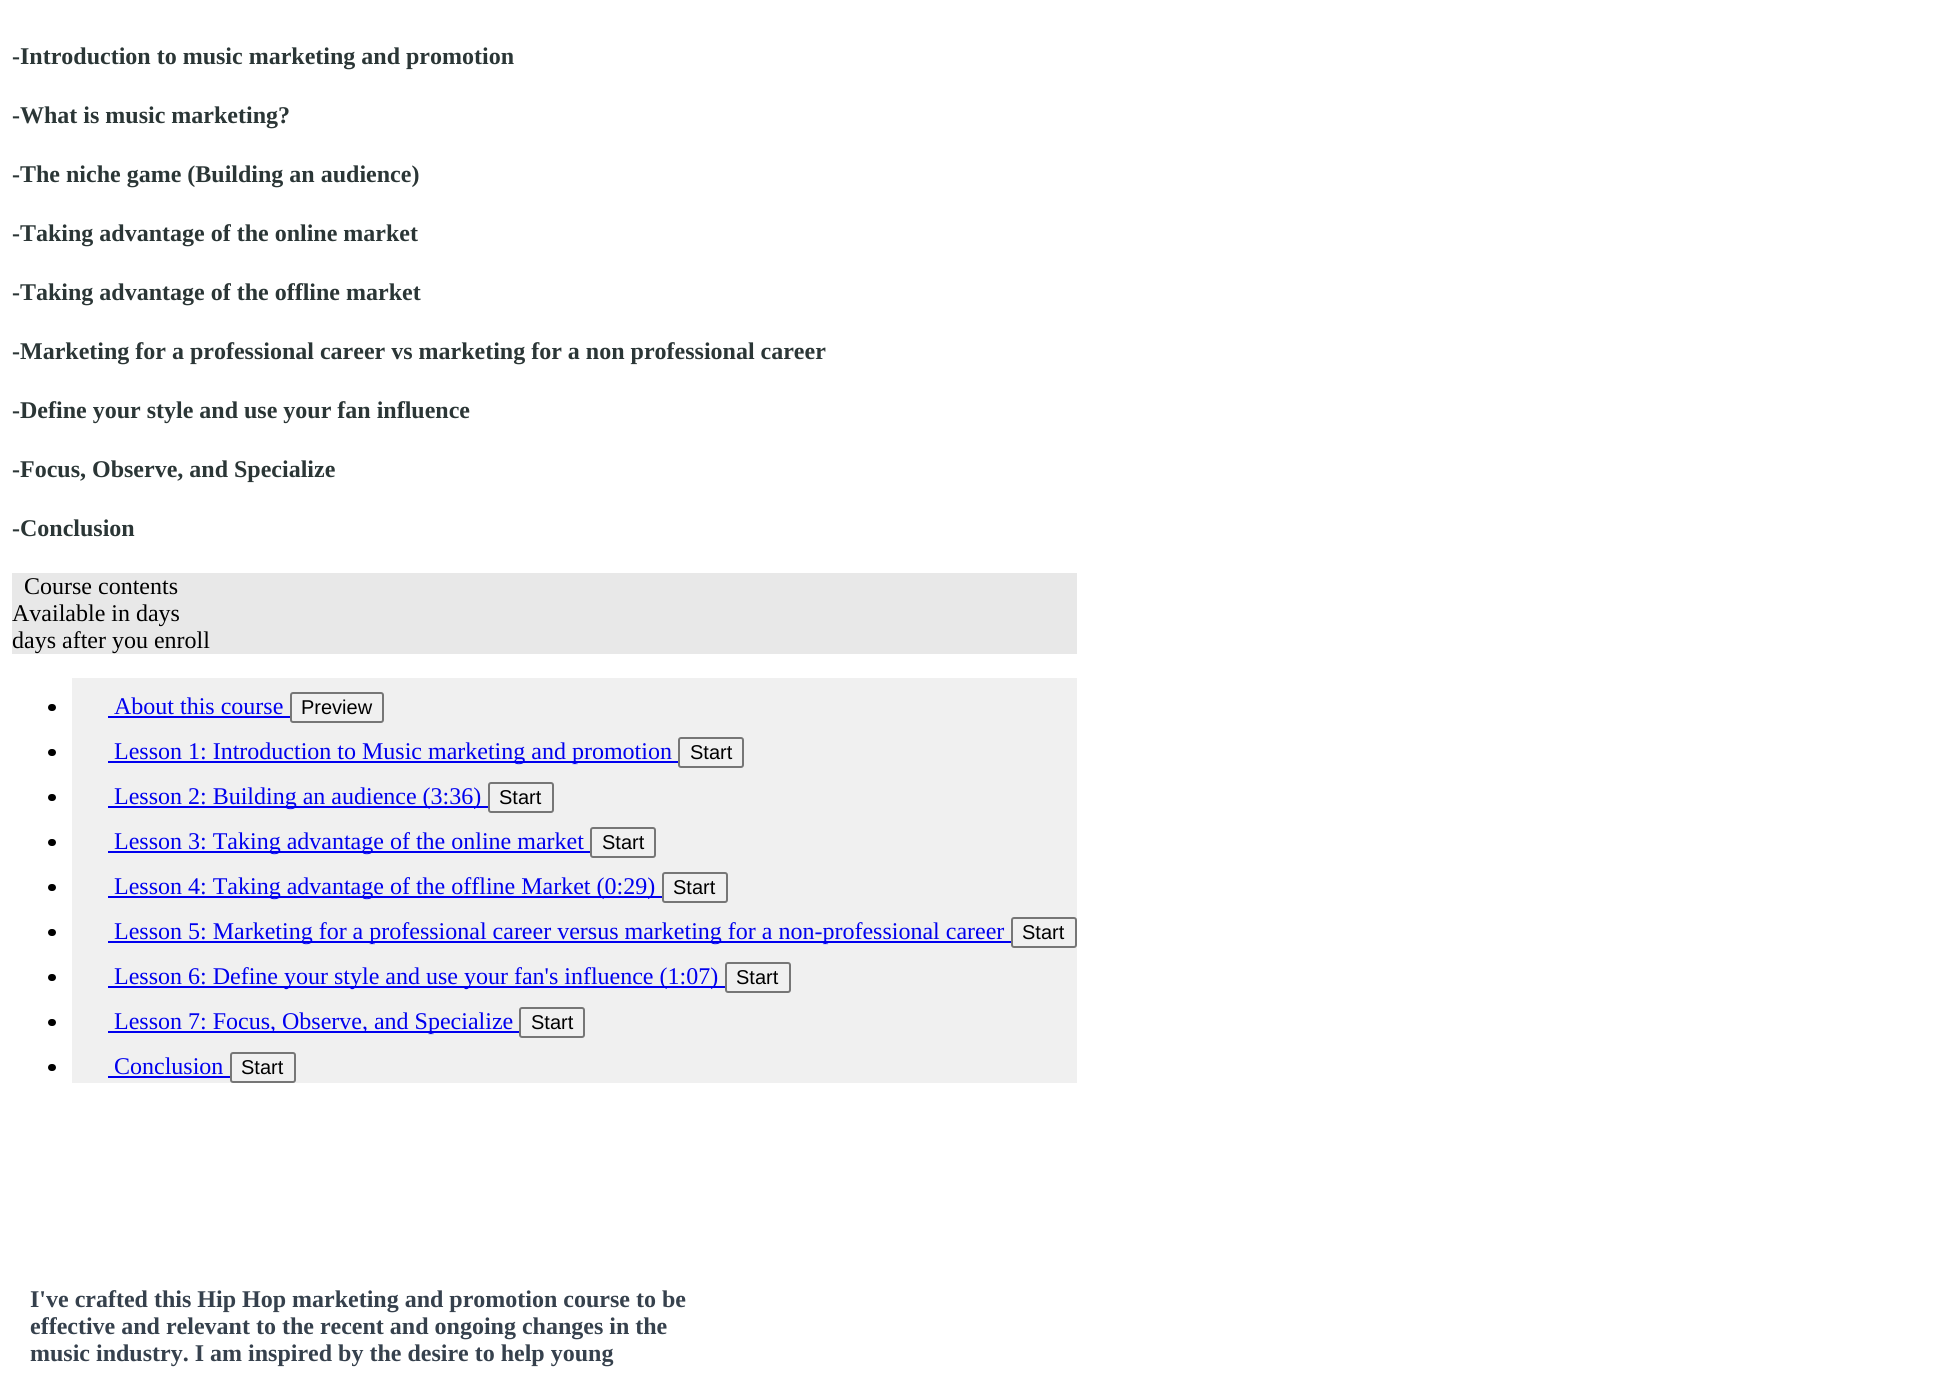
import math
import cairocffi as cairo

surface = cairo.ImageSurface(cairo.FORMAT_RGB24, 1959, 1373)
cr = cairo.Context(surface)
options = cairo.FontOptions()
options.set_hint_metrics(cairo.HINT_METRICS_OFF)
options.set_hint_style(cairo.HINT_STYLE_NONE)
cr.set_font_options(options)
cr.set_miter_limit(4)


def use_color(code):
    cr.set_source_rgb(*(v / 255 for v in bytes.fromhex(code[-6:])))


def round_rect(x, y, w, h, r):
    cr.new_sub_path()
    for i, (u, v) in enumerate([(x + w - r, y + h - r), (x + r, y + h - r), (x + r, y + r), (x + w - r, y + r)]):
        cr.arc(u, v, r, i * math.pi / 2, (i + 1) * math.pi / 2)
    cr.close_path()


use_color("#ffffff")
cr.paint()
cr.select_font_face("Liberation Serif", cairo.FONT_SLANT_NORMAL, cairo.FONT_WEIGHT_BOLD)
cr.set_font_size(24)
use_color("#2b3636")
cr.move_to(12, 64)
cr.show_text("-Introduction to music marketing and promotion")
cr.move_to(12, 123)
cr.show_text("-What is music marketing?")
cr.move_to(12, 182)
cr.show_text("-The niche game (Building an audience)")
cr.move_to(12, 241)
cr.show_text("-Taking advantage of the online market")
cr.move_to(12, 300)
cr.show_text("-Taking advantage of the offline market")
cr.move_to(12, 359)
cr.show_text("-Marketing for a professional career vs marketing for a non professional career")
cr.move_to(12, 418)
cr.show_text("-Define your style and use your fan influence")
cr.move_to(12, 477)
cr.show_text("-Focus, Observe, and Specialize")
cr.move_to(12, 536)
cr.show_text("-Conclusion")
use_color("#e8e8e8")
cr.rectangle(12, 573, 1065, 81)
cr.fill()
cr.select_font_face("Liberation Serif")
use_color("#000000")
cr.move_to(24, 594)
cr.show_text("Course contents")
cr.move_to(12, 621)
cr.show_text("Available in days")
cr.move_to(12, 648)
cr.show_text("days after you enroll")
use_color("#f0f0f0")
cr.rectangle(72, 678, 1005, 405)
cr.fill()
use_color("#000000")
round_rect(48, 704, 8, 7, 3.5)
cr.fill()
use_color("#0000ee")
cr.move_to(114, 714)
cr.show_text("About this course")
round_rect(291, 693, 92, 29, 2)
use_color("#767676")
cr.stroke()
cr.select_font_face("Liberation Sans")
cr.set_font_size(20)
use_color("#000000")
cr.move_to(301, 714)
cr.show_text("Preview")
use_color("#0000ee")
cr.rectangle(108, 716, 182, 2)
cr.fill()
use_color("#000000")
round_rect(48, 749, 8, 7, 3.5)
cr.fill()
use_color("#0000ee")
cr.rectangle(108, 761, 570, 2)
cr.fill()
cr.select_font_face("Liberation Serif")
cr.set_font_size(24)
cr.move_to(114, 759)
cr.show_text("Lesson 1: Introduction to Music marketing and promotion")
round_rect(679, 738, 64, 29, 2)
use_color("#767676")
cr.stroke()
cr.select_font_face("Liberation Sans")
cr.set_font_size(20)
use_color("#000000")
cr.move_to(690, 759)
cr.show_text("Start")
round_rect(48, 794, 8, 7, 3.5)
cr.fill()
use_color("#0000ee")
cr.rectangle(108, 806, 380, 2)
cr.fill()
cr.select_font_face("Liberation Serif")
cr.set_font_size(24)
cr.move_to(114, 804)
cr.show_text("Lesson 2: Building an audience (3:36)")
round_rect(489, 783, 64, 29, 2)
use_color("#767676")
cr.stroke()
cr.select_font_face("Liberation Sans")
cr.set_font_size(20)
use_color("#000000")
cr.move_to(499, 804)
cr.show_text("Start")
round_rect(48, 839, 8, 7, 3.5)
cr.fill()
use_color("#0000ee")
cr.rectangle(108, 851, 482, 2)
cr.fill()
cr.select_font_face("Liberation Serif")
cr.set_font_size(24)
cr.move_to(114, 849)
cr.show_text("Lesson 3: Taking advantage of the online market")
round_rect(591, 828, 64, 29, 2)
use_color("#767676")
cr.stroke()
cr.select_font_face("Liberation Sans")
cr.set_font_size(20)
use_color("#000000")
cr.move_to(602, 849)
cr.show_text("Start")
round_rect(48, 884, 8, 7, 3.5)
cr.fill()
use_color("#0000ee")
cr.rectangle(108, 896, 554, 2)
cr.fill()
cr.select_font_face("Liberation Serif")
cr.set_font_size(24)
cr.move_to(114, 894)
cr.show_text("Lesson 4: Taking advantage of the offline Market (0:29)")
round_rect(663, 873, 64, 29, 2)
use_color("#767676")
cr.stroke()
cr.select_font_face("Liberation Sans")
cr.set_font_size(20)
use_color("#000000")
cr.move_to(673, 894)
cr.show_text("Start")
round_rect(48, 929, 8, 7, 3.5)
cr.fill()
use_color("#0000ee")
cr.rectangle(108, 941, 903, 2)
cr.fill()
cr.select_font_face("Liberation Serif")
cr.set_font_size(24)
cr.move_to(114, 939)
cr.show_text("Lesson 5: Marketing for a professional career versus marketing for a non-professional career")
round_rect(1012, 918, 64, 29, 2)
use_color("#767676")
cr.stroke()
cr.select_font_face("Liberation Sans")
cr.set_font_size(20)
use_color("#000000")
cr.move_to(1022, 939)
cr.show_text("Start")
round_rect(48, 974, 8, 7, 3.5)
cr.fill()
use_color("#0000ee")
cr.rectangle(108, 986, 617, 2)
cr.fill()
cr.select_font_face("Liberation Serif")
cr.set_font_size(24)
cr.move_to(114, 984)
cr.show_text("Lesson 6: Define your style and use your fan's influence (1:07)")
round_rect(726, 963, 64, 29, 2)
use_color("#767676")
cr.stroke()
cr.select_font_face("Liberation Sans")
cr.set_font_size(20)
use_color("#000000")
cr.move_to(736, 984)
cr.show_text("Start")
round_rect(48, 1019, 8, 7, 3.5)
cr.fill()
use_color("#0000ee")
cr.rectangle(108, 1031, 411, 2)
cr.fill()
cr.select_font_face("Liberation Serif")
cr.set_font_size(24)
cr.move_to(114, 1029)
cr.show_text("Lesson 7: Focus, Observe, and Specialize")
round_rect(520, 1008, 64, 29, 2)
use_color("#767676")
cr.stroke()
cr.select_font_face("Liberation Sans")
cr.set_font_size(20)
use_color("#000000")
cr.move_to(531, 1029)
cr.show_text("Start")
round_rect(48, 1064, 8, 7, 3.5)
cr.fill()
cr.select_font_face("Liberation Serif")
cr.set_font_size(24)
use_color("#0000ee")
cr.move_to(114, 1074)
cr.show_text("Conclusion")
round_rect(231, 1053, 64, 29, 2)
use_color("#767676")
cr.stroke()
cr.select_font_face("Liberation Sans")
cr.set_font_size(20)
use_color("#000000")
cr.move_to(241, 1074)
cr.show_text("Start")
use_color("#0000ee")
cr.rectangle(108, 1076, 122, 2)
cr.fill()
cr.select_font_face("Liberation Serif", cairo.FONT_SLANT_NORMAL, cairo.FONT_WEIGHT_BOLD)
cr.set_font_size(24)
use_color("#36414d")
cr.move_to(30, 1307)
cr.show_text("I've crafted this Hip Hop marketing and promotion course to be")
cr.move_to(30, 1334)
cr.show_text("effective and relevant to the recent and ongoing changes in the")
cr.move_to(30, 1361)
cr.show_text("music industry. I am inspired by the desire to help young")
surface.write_to_png("result.png")
